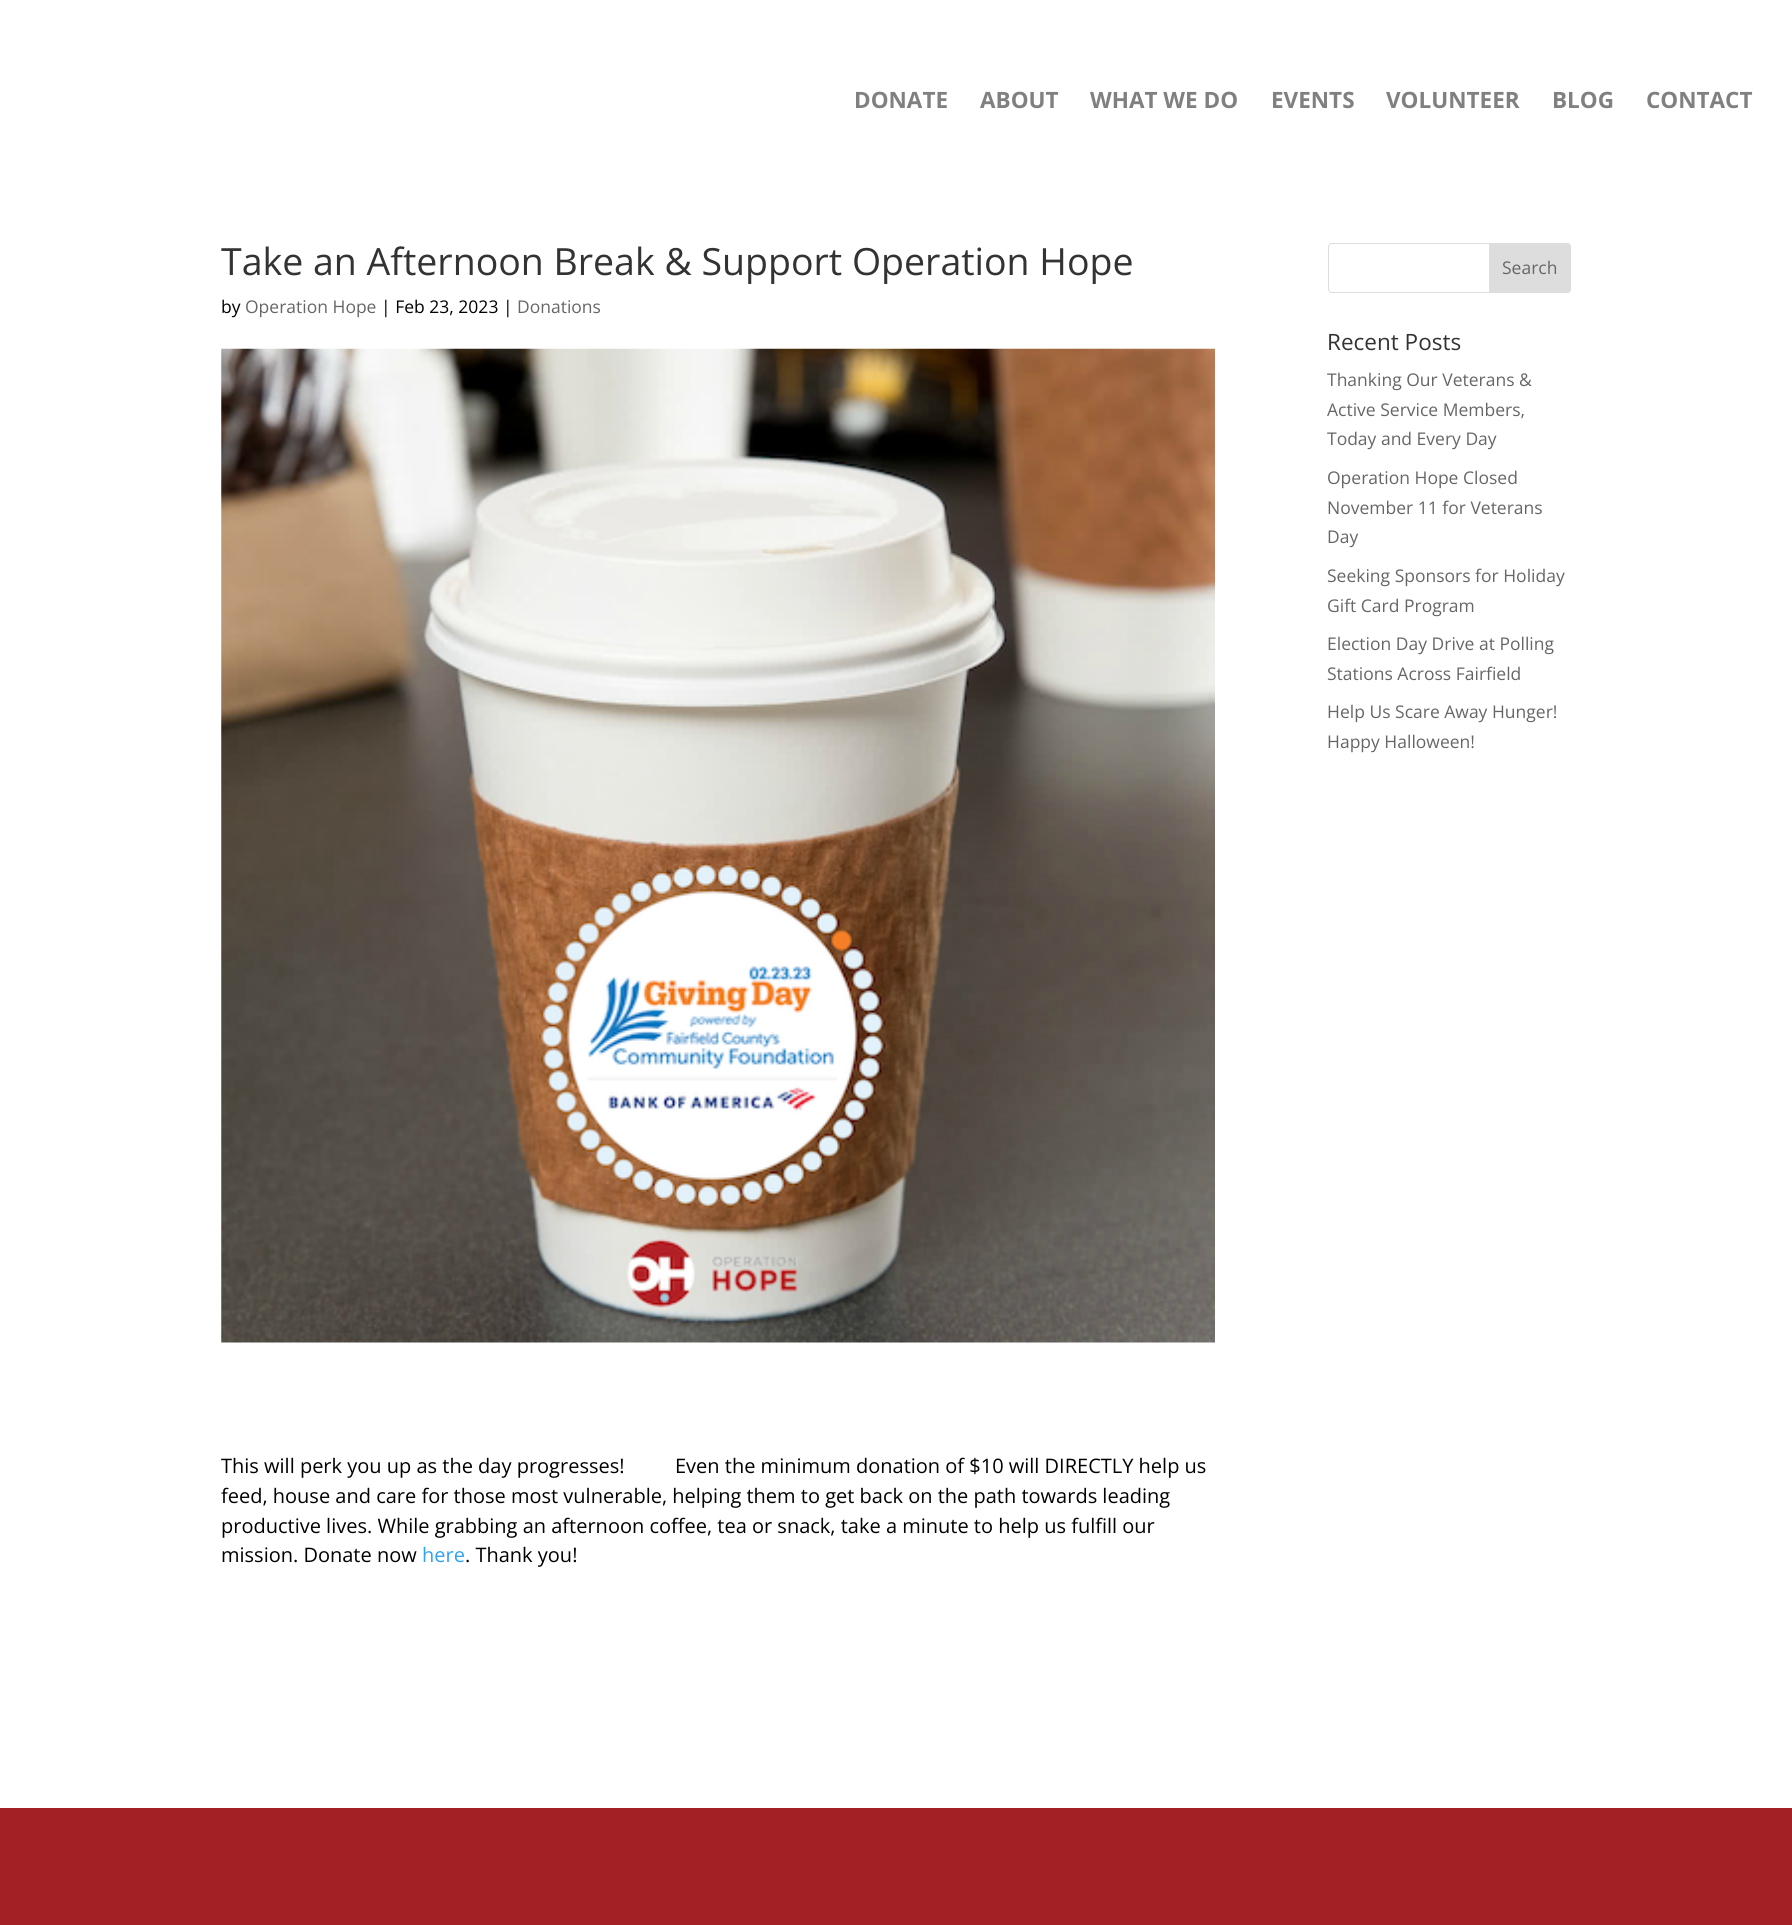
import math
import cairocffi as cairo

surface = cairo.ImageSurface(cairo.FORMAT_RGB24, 1792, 1925)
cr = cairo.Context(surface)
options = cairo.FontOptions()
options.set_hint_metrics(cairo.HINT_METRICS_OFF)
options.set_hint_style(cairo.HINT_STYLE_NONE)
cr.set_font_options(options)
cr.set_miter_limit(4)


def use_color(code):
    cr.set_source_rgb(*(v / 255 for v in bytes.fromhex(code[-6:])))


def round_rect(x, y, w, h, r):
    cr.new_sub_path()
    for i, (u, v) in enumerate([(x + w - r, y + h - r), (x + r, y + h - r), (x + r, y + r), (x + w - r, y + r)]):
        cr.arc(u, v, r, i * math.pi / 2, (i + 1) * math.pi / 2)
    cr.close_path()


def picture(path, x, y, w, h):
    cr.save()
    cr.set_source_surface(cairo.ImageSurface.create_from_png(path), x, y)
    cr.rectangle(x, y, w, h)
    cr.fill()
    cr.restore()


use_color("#ffffff")
cr.paint()
cr.select_font_face("Open Sans", cairo.FONT_SLANT_NORMAL, cairo.FONT_WEIGHT_BOLD)
cr.set_font_size(22.5)
use_color("#808080")
cr.move_to(854, 108)
cr.show_text("DONATE")
cr.move_to(980, 108)
cr.show_text("ABOUT")
cr.move_to(1090, 108)
cr.show_text("WHAT WE DO")
cr.move_to(1271, 108)
cr.show_text("EVENTS")
cr.move_to(1386, 108)
cr.show_text("VOLUNTEER")
cr.move_to(1552, 108)
cr.show_text("BLOG")
cr.move_to(1646, 108)
cr.show_text("CONTACT")
cr.select_font_face("Open Sans")
cr.set_font_size(37.5)
use_color("#333333")
cr.move_to(221, 275)
cr.show_text("Take an Afternoon Break & Support Operation Hope")
cr.set_font_size(17.5)
use_color("#000000")
cr.move_to(221, 313)
cr.show_text("by")
use_color("#666666")
cr.move_to(245, 313)
cr.show_text("Operation Hope")
use_color("#000000")
cr.move_to(381, 313)
cr.show_text("| Feb 23, 2023 |")
use_color("#666666")
cr.move_to(517, 313)
cr.show_text("Donations")
picture("img1.png", 221, 348, 994, 995)
cr.set_font_size(20)
use_color("#000000")
cr.move_to(221, 1473)
cr.show_text("This will perk you up as the day progresses!")
cr.move_to(675, 1473)
cr.show_text("Even the minimum donation of $10 will DIRECTLY help us")
cr.move_to(221, 1503)
cr.show_text("feed, house and care for those most vulnerable, helping them to get back on the path towards leading")
cr.move_to(221, 1533)
cr.show_text("productive lives. While grabbing an afternoon coffee, tea or snack, take a minute to help us fulfill our")
cr.move_to(221, 1562)
cr.show_text("mission. Donate now")
use_color("#2ea3f2")
cr.move_to(422, 1562)
cr.show_text("here")
use_color("#000000")
cr.move_to(465, 1562)
cr.show_text(". Thank you!")
round_rect(1328.5, 243.5, 242, 49, 3.5)
use_color("#dddddd")
cr.set_line_width(1)
cr.stroke()
cr.new_path()
cr.move_to(1489.5, 243.5)
cr.line_to(1567, 243.5)
cr.curve_to(1569, 243.5, 1570.5, 245, 1570.5, 247)
cr.line_to(1570.5, 289)
cr.curve_to(1570.5, 291, 1569, 292.5, 1567, 292.5)
cr.line_to(1489.5, 292.5)
cr.close_path()
cr.fill_preserve()
cr.stroke()
cr.set_font_size(17.5)
use_color("#666666")
cr.move_to(1502, 274)
cr.show_text("Search")
cr.set_font_size(22.5)
use_color("#333333")
cr.move_to(1327, 350)
cr.show_text("Recent Posts")
cr.set_font_size(17.5)
use_color("#666666")
cr.move_to(1327, 386)
cr.show_text("Thanking Our Veterans &")
cr.move_to(1327, 416)
cr.show_text("Active Service Members,")
cr.move_to(1327, 445)
cr.show_text("Today and Every Day")
cr.move_to(1327, 484)
cr.show_text("Operation Hope Closed")
cr.move_to(1327, 514)
cr.show_text("November 11 for Veterans")
cr.move_to(1327, 543)
cr.show_text("Day")
cr.move_to(1327, 582)
cr.show_text("Seeking Sponsors for Holiday")
cr.move_to(1327, 612)
cr.show_text("Gift Card Program")
cr.move_to(1327, 650)
cr.show_text("Election Day Drive at Polling")
cr.move_to(1327, 680)
cr.show_text("Stations Across Fairfield")
cr.move_to(1327, 718)
cr.show_text("Help Us Scare Away Hunger!")
cr.move_to(1327, 748)
cr.show_text("Happy Halloween!")
use_color("#a32025")
cr.rectangle(0, 1808, 1792, 117)
cr.fill()
surface.write_to_png("result.png")
